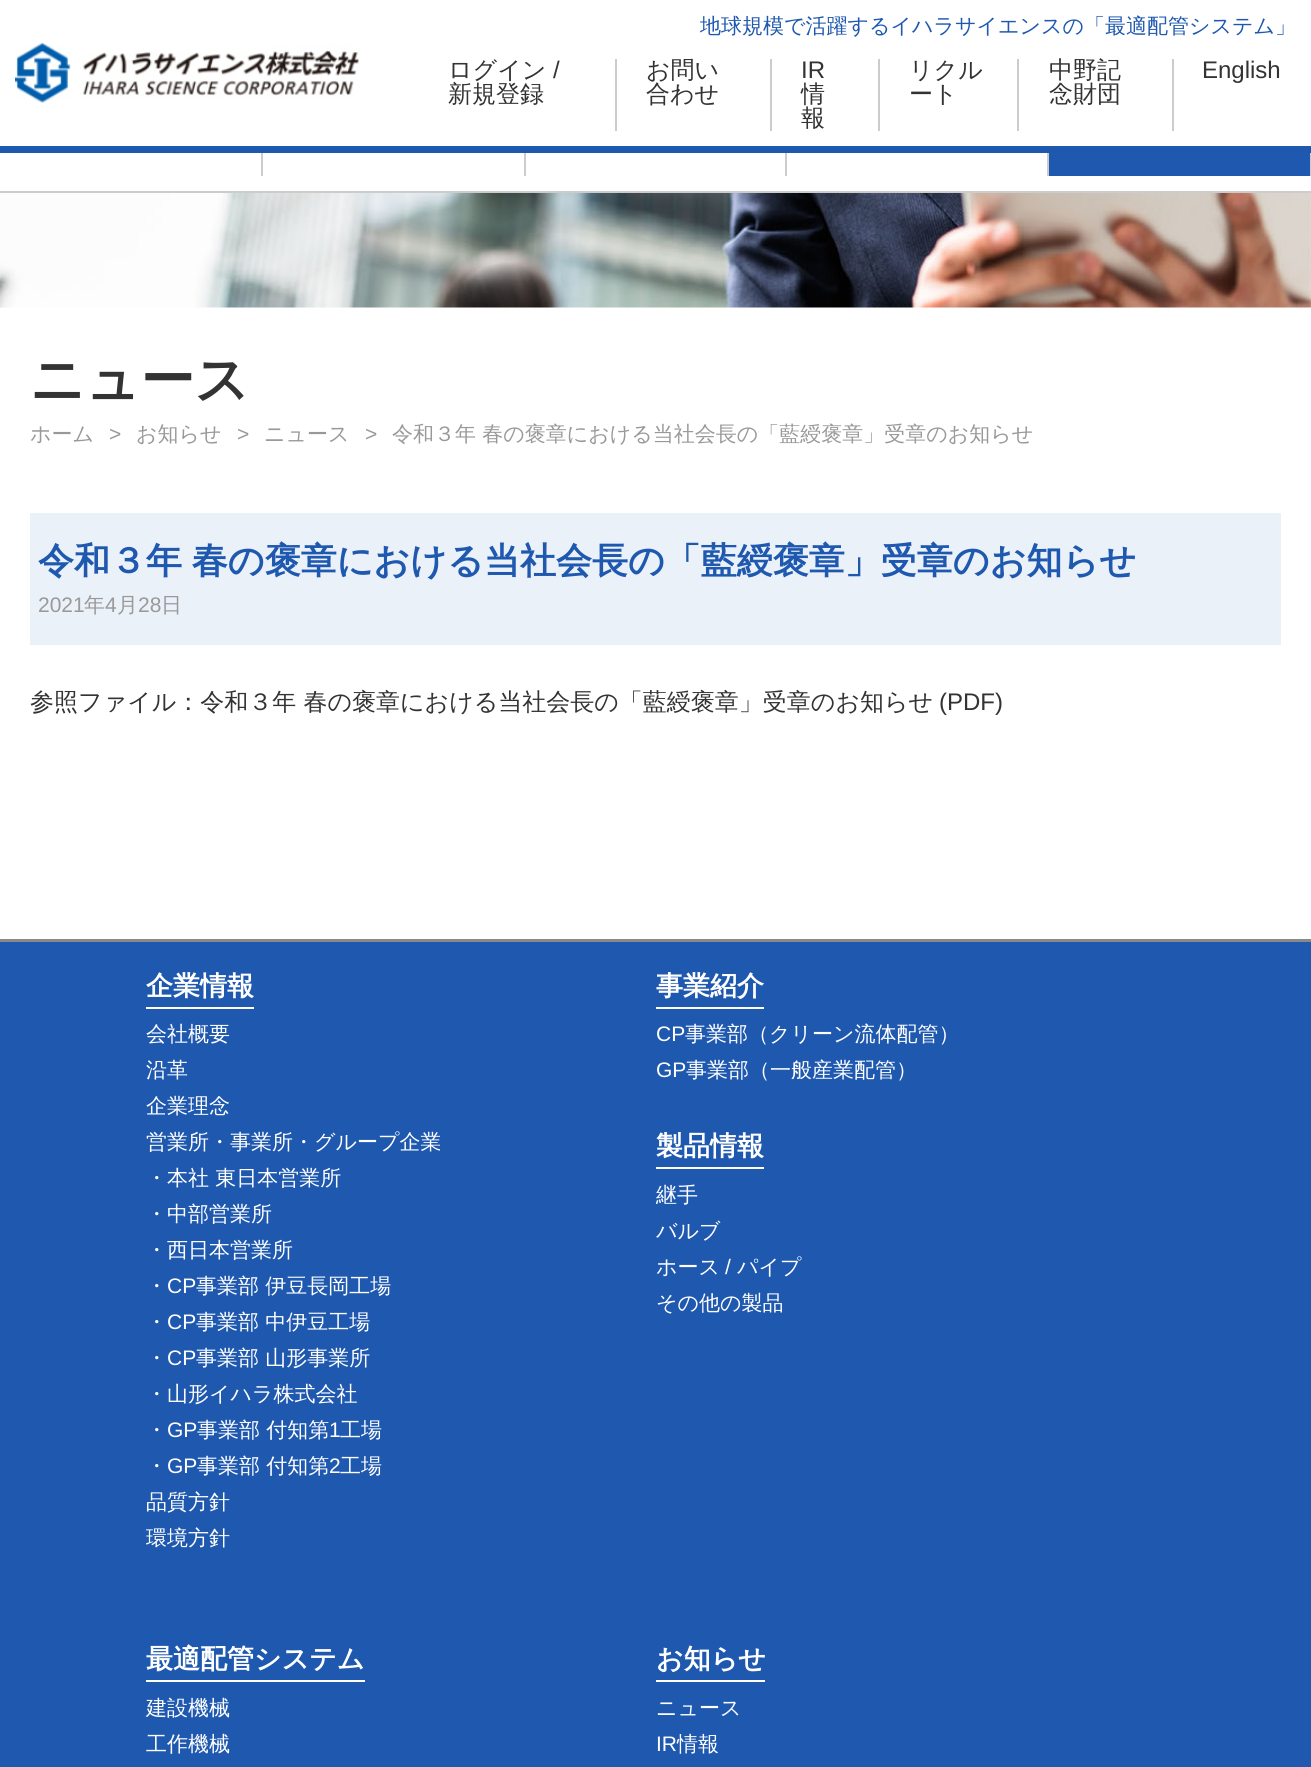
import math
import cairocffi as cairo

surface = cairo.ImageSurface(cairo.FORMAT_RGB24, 1311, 1767)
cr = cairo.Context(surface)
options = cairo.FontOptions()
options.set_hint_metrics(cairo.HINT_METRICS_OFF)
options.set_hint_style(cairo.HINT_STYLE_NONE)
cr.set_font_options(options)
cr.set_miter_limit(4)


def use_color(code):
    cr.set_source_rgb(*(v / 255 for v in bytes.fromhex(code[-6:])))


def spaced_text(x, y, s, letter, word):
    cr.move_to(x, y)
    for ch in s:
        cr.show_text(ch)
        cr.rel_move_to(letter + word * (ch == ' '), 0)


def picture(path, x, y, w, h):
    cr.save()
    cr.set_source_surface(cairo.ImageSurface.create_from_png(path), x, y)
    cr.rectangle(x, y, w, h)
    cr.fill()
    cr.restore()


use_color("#ffffff")
cr.paint()
use_color("#1e58af")
cr.rectangle(0, 146, 1311, 7)
cr.fill()
picture("img1.png", 15, 43, 344, 60)
cr.select_font_face("WenQuanYi Zen Hei Medium")
cr.set_font_size(21)
cr.move_to(700, 33)
cr.show_text("地球規模で活躍するイハラサイエンスの「最適配管システム」")
use_color("#cccccc")
cr.rectangle(615, 59, 2, 72)
cr.fill()
cr.set_font_size(24)
use_color("#333333")
cr.move_to(448, 78)
cr.show_text("ログイン")
cr.select_font_face("Liberation Sans")
cr.move_to(553, 78)
cr.show_text("/")
cr.select_font_face("WenQuanYi Zen Hei Medium")
cr.move_to(448, 102)
cr.show_text("新規登録")
use_color("#cccccc")
cr.rectangle(770, 59, 2, 72)
cr.fill()
use_color("#333333")
cr.move_to(646, 78)
cr.show_text("お問い")
cr.move_to(646, 102)
cr.show_text("合わせ")
use_color("#cccccc")
cr.rectangle(878, 59, 2, 72)
cr.fill()
cr.select_font_face("Liberation Sans")
use_color("#333333")
cr.move_to(801, 78)
cr.show_text("IR")
cr.select_font_face("WenQuanYi Zen Hei Medium")
cr.move_to(801, 102)
cr.show_text("情")
cr.move_to(801, 126)
cr.show_text("報")
use_color("#cccccc")
cr.rectangle(1017, 59, 2, 72)
cr.fill()
use_color("#333333")
cr.move_to(909, 78)
cr.show_text("リクル")
cr.move_to(909, 102)
cr.show_text("ート")
use_color("#cccccc")
cr.rectangle(1172, 59, 2, 72)
cr.fill()
use_color("#333333")
cr.move_to(1049, 78)
cr.show_text("中野記")
cr.move_to(1049, 102)
cr.show_text("念財団")
cr.select_font_face("Liberation Sans")
cr.move_to(1202, 78)
cr.show_text("English")
use_color("#cccccc")
cr.rectangle(0, 191, 1311, 2)
cr.fill()
cr.rectangle(261, 153, 2, 23)
cr.fill()
cr.rectangle(524, 153, 2, 23)
cr.fill()
cr.rectangle(785, 153, 2, 23)
cr.fill()
cr.rectangle(1047, 153, 2, 23)
cr.fill()
use_color("#1e58af")
cr.rectangle(1049, 153, 261, 23)
cr.fill()
use_color("#cccccc")
cr.rectangle(1310, 153, 1, 23)
cr.fill()
picture("img2.png", 0, 193, 1311, 115)
cr.select_font_face("WenQuanYi Zen Hei", cairo.FONT_SLANT_NORMAL, cairo.FONT_WEIGHT_BOLD)
cr.set_font_size(54)
use_color("#333333")
cr.move_to(30, 398)
cr.show_text("ニュース")
cr.select_font_face("WenQuanYi Zen Hei Medium")
cr.set_font_size(21)
use_color("#999999")
cr.move_to(30, 441)
cr.show_text("ホーム")
cr.select_font_face("Liberation Sans")
cr.move_to(109, 441)
cr.show_text(">")
cr.select_font_face("WenQuanYi Zen Hei Medium")
cr.move_to(136, 441)
cr.show_text("お知らせ")
cr.select_font_face("Liberation Sans")
cr.move_to(237, 441)
cr.show_text(">")
cr.select_font_face("WenQuanYi Zen Hei Medium")
cr.move_to(264, 441)
cr.show_text("ニュース")
cr.select_font_face("Liberation Sans")
cr.move_to(365, 441)
cr.show_text(">")
cr.select_font_face("WenQuanYi Zen Hei Medium")
cr.move_to(392, 441)
cr.show_text("令和３年 春の褒章における当社会長の「藍綬褒章」受章のお知らせ")
use_color("#ebf1f9")
cr.rectangle(30, 513, 1251, 132)
cr.fill()
cr.select_font_face("WenQuanYi Zen Hei", cairo.FONT_SLANT_NORMAL, cairo.FONT_WEIGHT_BOLD)
cr.set_font_size(36)
use_color("#1e58af")
spaced_text(38, 573, "令和３年 春の褒章における当社会長の「藍綬褒章」受章のお知らせ", 0, -1)
cr.select_font_face("Liberation Sans")
cr.set_font_size(21)
use_color("#999999")
cr.move_to(38, 612)
cr.show_text("2021")
cr.select_font_face("WenQuanYi Zen Hei Medium")
cr.move_to(84, 612)
cr.show_text("年")
cr.select_font_face("Liberation Sans")
cr.move_to(105, 612)
cr.show_text("4")
cr.select_font_face("WenQuanYi Zen Hei Medium")
cr.move_to(117, 612)
cr.show_text("月")
cr.select_font_face("Liberation Sans")
cr.move_to(138, 612)
cr.show_text("28")
cr.select_font_face("WenQuanYi Zen Hei Medium")
cr.move_to(161, 612)
cr.show_text("日")
cr.set_font_size(24)
use_color("#333333")
cr.move_to(30, 710)
cr.show_text("参照ファイル：令和３年 春の褒章における当社会長の「藍綬褒章」受章のお知らせ")
cr.select_font_face("Liberation Sans")
cr.move_to(939, 710)
cr.show_text("(PDF)")
use_color("#1e58af")
cr.rectangle(0, 942, 1311, 825)
cr.fill()
use_color("#898989")
cr.rectangle(0, 939, 1311, 3)
cr.fill()
use_color("#ffffff")
cr.rectangle(146, 1007, 108, 2)
cr.fill()
cr.select_font_face("WenQuanYi Zen Hei", cairo.FONT_SLANT_NORMAL, cairo.FONT_WEIGHT_BOLD)
cr.set_font_size(27)
cr.move_to(146, 995)
cr.show_text("企業情報")
cr.select_font_face("WenQuanYi Zen Hei Medium")
cr.set_font_size(21)
cr.move_to(146, 1041)
cr.show_text("会社概要")
cr.move_to(146, 1077)
cr.show_text("沿革")
cr.move_to(146, 1113)
cr.show_text("企業理念")
cr.move_to(146, 1149)
cr.show_text("営業所・事業所・グループ企業")
cr.move_to(146, 1185)
cr.show_text("・")
cr.move_to(167, 1185)
cr.show_text("本社 東日本営業所")
cr.move_to(146, 1221)
cr.show_text("・中部営業所")
cr.move_to(146, 1257)
cr.show_text("・西日本営業所")
cr.move_to(146, 1293)
cr.show_text("・")
cr.select_font_face("Liberation Sans")
cr.move_to(167, 1293)
cr.show_text("CP")
cr.select_font_face("WenQuanYi Zen Hei Medium")
cr.move_to(196, 1293)
cr.show_text("事業部 伊豆長岡工場")
cr.move_to(146, 1329)
cr.show_text("・")
cr.select_font_face("Liberation Sans")
cr.move_to(167, 1329)
cr.show_text("CP")
cr.select_font_face("WenQuanYi Zen Hei Medium")
cr.move_to(196, 1329)
cr.show_text("事業部 中伊豆工場")
cr.move_to(146, 1365)
cr.show_text("・")
cr.select_font_face("Liberation Sans")
cr.move_to(167, 1365)
cr.show_text("CP")
cr.select_font_face("WenQuanYi Zen Hei Medium")
cr.move_to(196, 1365)
cr.show_text("事業部 山形事業所")
cr.move_to(146, 1401)
cr.show_text("・山形イハラ株式会社")
cr.move_to(146, 1437)
cr.show_text("・")
cr.select_font_face("Liberation Sans")
cr.move_to(167, 1437)
cr.show_text("GP")
cr.select_font_face("WenQuanYi Zen Hei Medium")
cr.move_to(197, 1437)
cr.show_text("事業部 付知第")
cr.select_font_face("Liberation Sans")
cr.move_to(329, 1437)
cr.show_text("1")
cr.select_font_face("WenQuanYi Zen Hei Medium")
cr.move_to(340, 1437)
cr.show_text("工場")
cr.move_to(146, 1473)
cr.show_text("・")
cr.select_font_face("Liberation Sans")
cr.move_to(167, 1473)
cr.show_text("GP")
cr.select_font_face("WenQuanYi Zen Hei Medium")
cr.move_to(197, 1473)
cr.show_text("事業部 付知第")
cr.select_font_face("Liberation Sans")
cr.move_to(329, 1473)
cr.show_text("2")
cr.select_font_face("WenQuanYi Zen Hei Medium")
cr.move_to(340, 1473)
cr.show_text("工場")
cr.move_to(146, 1509)
cr.show_text("品質方針")
cr.move_to(146, 1545)
cr.show_text("環境方針")
cr.rectangle(656, 1007, 108, 2)
cr.fill()
cr.select_font_face("WenQuanYi Zen Hei", cairo.FONT_SLANT_NORMAL, cairo.FONT_WEIGHT_BOLD)
cr.set_font_size(27)
cr.move_to(656, 995)
cr.show_text("事業紹介")
cr.select_font_face("Liberation Sans")
cr.set_font_size(21)
cr.move_to(656, 1041)
cr.show_text("CP")
cr.select_font_face("WenQuanYi Zen Hei Medium")
cr.move_to(685, 1041)
cr.show_text("事業部（クリーン流体配管）")
cr.select_font_face("Liberation Sans")
cr.move_to(656, 1077)
cr.show_text("GP")
cr.select_font_face("WenQuanYi Zen Hei Medium")
cr.move_to(686, 1077)
cr.show_text("事業部（一般産業配管）")
cr.rectangle(656, 1167, 108, 2)
cr.fill()
cr.select_font_face("WenQuanYi Zen Hei", cairo.FONT_SLANT_NORMAL, cairo.FONT_WEIGHT_BOLD)
cr.set_font_size(27)
cr.move_to(656, 1155)
cr.show_text("製品情報")
cr.select_font_face("WenQuanYi Zen Hei Medium")
cr.set_font_size(21)
cr.move_to(656, 1202)
cr.show_text("継手")
cr.move_to(656, 1238)
cr.show_text("バルブ")
cr.move_to(656, 1274)
cr.show_text("ホース")
cr.select_font_face("Liberation Sans")
cr.move_to(725, 1274)
cr.show_text("/")
cr.select_font_face("WenQuanYi Zen Hei Medium")
cr.move_to(737, 1274)
cr.show_text("パイプ")
cr.move_to(656, 1310)
cr.show_text("その他の製品")
cr.rectangle(146, 1680, 219, 2)
cr.fill()
cr.select_font_face("WenQuanYi Zen Hei", cairo.FONT_SLANT_NORMAL, cairo.FONT_WEIGHT_BOLD)
cr.set_font_size(27)
cr.move_to(146, 1668)
cr.show_text("最適配管システム")
cr.select_font_face("WenQuanYi Zen Hei Medium")
cr.set_font_size(21)
cr.move_to(146, 1715)
cr.show_text("建設機械")
cr.move_to(146, 1751)
cr.show_text("工作機械")
cr.rectangle(656, 1680, 109, 2)
cr.fill()
cr.select_font_face("WenQuanYi Zen Hei", cairo.FONT_SLANT_NORMAL, cairo.FONT_WEIGHT_BOLD)
cr.set_font_size(27)
cr.move_to(656, 1668)
cr.show_text("お知らせ")
cr.select_font_face("WenQuanYi Zen Hei Medium")
cr.set_font_size(21)
cr.move_to(656, 1715)
cr.show_text("ニュース")
cr.select_font_face("Liberation Sans")
cr.move_to(656, 1751)
cr.show_text("IR")
cr.select_font_face("WenQuanYi Zen Hei Medium")
cr.move_to(677, 1751)
cr.show_text("情報")
surface.write_to_png("result.png")
